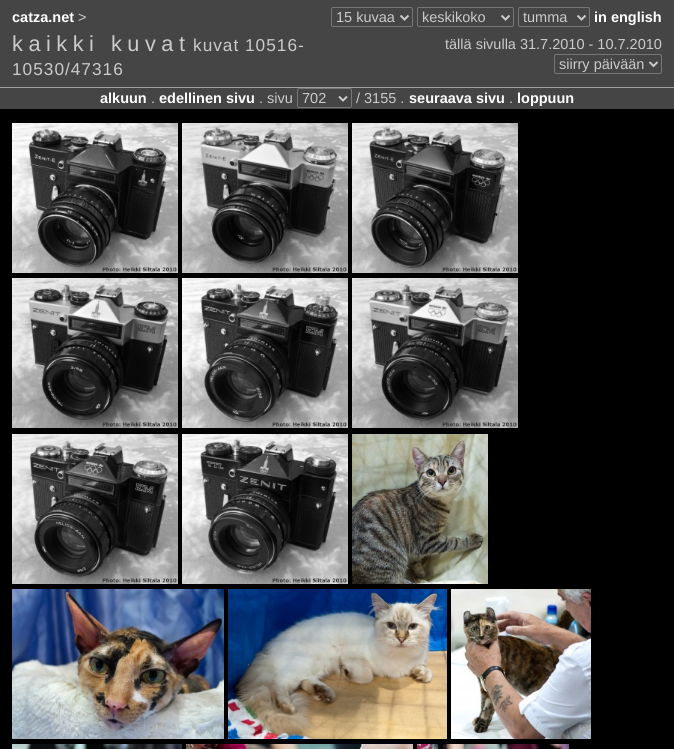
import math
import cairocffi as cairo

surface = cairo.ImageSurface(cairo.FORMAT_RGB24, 674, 749)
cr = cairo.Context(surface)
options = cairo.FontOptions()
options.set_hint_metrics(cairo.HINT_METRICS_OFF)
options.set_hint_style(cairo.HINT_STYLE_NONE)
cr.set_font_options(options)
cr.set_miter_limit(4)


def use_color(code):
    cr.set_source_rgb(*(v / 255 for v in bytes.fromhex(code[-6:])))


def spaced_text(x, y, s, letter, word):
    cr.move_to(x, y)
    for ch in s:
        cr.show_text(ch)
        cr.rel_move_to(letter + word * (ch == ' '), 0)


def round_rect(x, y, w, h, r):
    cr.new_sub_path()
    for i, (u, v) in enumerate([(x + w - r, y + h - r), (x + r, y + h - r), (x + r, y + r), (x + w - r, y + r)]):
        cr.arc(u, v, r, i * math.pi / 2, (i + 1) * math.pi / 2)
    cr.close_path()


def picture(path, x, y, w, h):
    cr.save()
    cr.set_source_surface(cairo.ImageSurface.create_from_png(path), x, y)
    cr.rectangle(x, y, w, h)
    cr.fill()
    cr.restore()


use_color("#000000")
cr.paint()
use_color("#454545")
cr.rectangle(0, 0, 674, 109)
cr.fill()
cr.select_font_face("Liberation Sans", cairo.FONT_SLANT_NORMAL, cairo.FONT_WEIGHT_BOLD)
cr.set_font_size(14.5)
use_color("#ffffff")
cr.move_to(12, 22)
cr.show_text("catza.net")
cr.select_font_face("Liberation Sans")
use_color("#cbcbcb")
cr.move_to(78, 22)
cr.show_text(">")
round_rect(331.5, 7.5, 81, 19, 1.5)
use_color("#767676")
cr.set_line_width(1)
cr.stroke()
cr.new_path()
cr.move_to(400.5, 15.5)
cr.line_to(404.5, 19.5)
cr.line_to(408.5, 15.5)
use_color("#cbcbcb")
cr.set_line_width(2)
cr.stroke()
cr.move_to(336, 22)
cr.show_text("15 kuvaa")
round_rect(417.5, 7.5, 96, 19, 1.5)
use_color("#767676")
cr.set_line_width(1)
cr.stroke()
cr.new_path()
cr.move_to(501.5, 15.5)
cr.line_to(505.5, 19.5)
cr.line_to(509.5, 15.5)
use_color("#cbcbcb")
cr.set_line_width(2)
cr.stroke()
cr.move_to(422, 22)
cr.show_text("keskikoko")
round_rect(518.5, 7.5, 71, 19, 1.5)
use_color("#767676")
cr.set_line_width(1)
cr.stroke()
cr.new_path()
cr.move_to(577.5, 15.5)
cr.line_to(581.5, 19.5)
cr.line_to(585.5, 15.5)
use_color("#cbcbcb")
cr.set_line_width(2)
cr.stroke()
cr.move_to(523, 22)
cr.show_text("tumma")
cr.select_font_face("Liberation Sans", cairo.FONT_SLANT_NORMAL, cairo.FONT_WEIGHT_BOLD)
use_color("#ffffff")
cr.move_to(594, 22)
cr.show_text("in english")
cr.select_font_face("Liberation Sans")
cr.set_font_size(21.75)
use_color("#cbcbcb")
spaced_text(12, 51, "kaikki kuvat", 5.5, 0)
cr.set_font_size(17.25)
spaced_text(193, 51, "kuvat 10516-", 1, 0)
spaced_text(12, 75, "10530/47316", 1, 0)
cr.set_font_size(14.5)
cr.move_to(445, 49)
cr.show_text("tällä sivulla 31.7.2010 - 10.7.2010")
round_rect(554.5, 54.5, 107, 19, 1.5)
use_color("#767676")
cr.set_line_width(1)
cr.stroke()
cr.new_path()
cr.move_to(649.5, 62)
cr.line_to(653.5, 66)
cr.line_to(657.5, 62)
use_color("#cbcbcb")
cr.set_line_width(2)
cr.stroke()
cr.move_to(559, 69)
cr.show_text("siirry päivään")
use_color("#a3a3a3")
cr.rectangle(0, 87, 674, 1)
cr.fill()
cr.select_font_face("Liberation Sans", cairo.FONT_SLANT_NORMAL, cairo.FONT_WEIGHT_BOLD)
use_color("#ffffff")
cr.move_to(100, 103)
cr.show_text("alkuun")
cr.select_font_face("Liberation Sans")
use_color("#cbcbcb")
cr.move_to(151, 103)
cr.show_text(".")
cr.select_font_face("Liberation Sans", cairo.FONT_SLANT_NORMAL, cairo.FONT_WEIGHT_BOLD)
use_color("#ffffff")
cr.move_to(159, 103)
cr.show_text("edellinen sivu")
cr.select_font_face("Liberation Sans")
use_color("#cbcbcb")
cr.move_to(259, 103)
cr.show_text(". sivu")
round_rect(297.5, 88.5, 54, 19, 1.5)
use_color("#767676")
cr.set_line_width(1)
cr.stroke()
cr.new_path()
cr.move_to(339, 96.5)
cr.line_to(343, 100.5)
cr.line_to(347, 96.5)
use_color("#cbcbcb")
cr.set_line_width(2)
cr.stroke()
cr.move_to(302, 103)
cr.show_text("702")
cr.move_to(356, 103)
cr.show_text("/ 3155 .")
cr.select_font_face("Liberation Sans", cairo.FONT_SLANT_NORMAL, cairo.FONT_WEIGHT_BOLD)
use_color("#ffffff")
cr.move_to(409, 103)
cr.show_text("seuraava sivu")
cr.select_font_face("Liberation Sans")
use_color("#cbcbcb")
cr.move_to(509, 103)
cr.show_text(".")
cr.select_font_face("Liberation Sans", cairo.FONT_SLANT_NORMAL, cairo.FONT_WEIGHT_BOLD)
use_color("#ffffff")
cr.move_to(517, 103)
cr.show_text("loppuun")
picture("img1.png", 12, 123, 166, 150)
picture("img2.png", 182, 123, 166, 150)
picture("img3.png", 352, 123, 166, 150)
picture("img4.png", 12, 278, 166, 150)
picture("img5.png", 182, 278, 166, 150)
picture("img6.png", 352, 278, 166, 150)
picture("img7.png", 12, 434, 166, 150)
picture("img8.png", 182, 434, 166, 150)
picture("img9.png", 352, 434, 136, 150)
picture("img10.png", 12, 589, 212, 150)
picture("img11.png", 228, 589, 219, 150)
picture("img12.png", 451, 589, 140, 150)
picture("img13.png", 12, 744, 170, 5)
picture("img14.png", 186, 744, 227, 5)
picture("img15.png", 417, 744, 152, 5)
surface.write_to_png("result.png")
